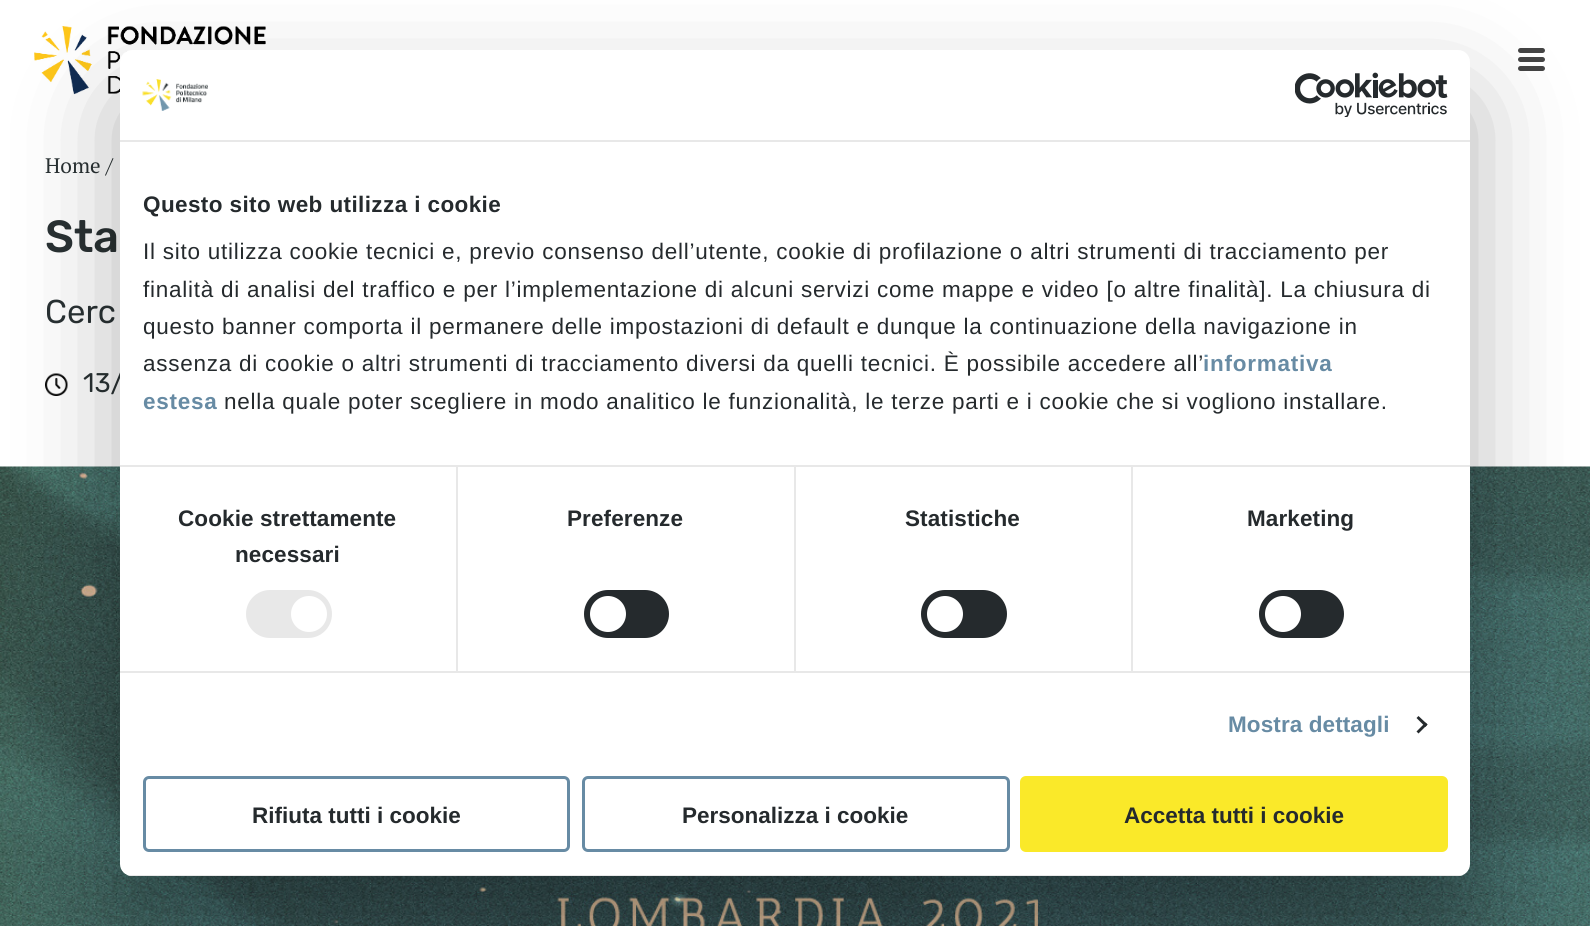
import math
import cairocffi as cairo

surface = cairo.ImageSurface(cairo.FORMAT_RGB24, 1590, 926)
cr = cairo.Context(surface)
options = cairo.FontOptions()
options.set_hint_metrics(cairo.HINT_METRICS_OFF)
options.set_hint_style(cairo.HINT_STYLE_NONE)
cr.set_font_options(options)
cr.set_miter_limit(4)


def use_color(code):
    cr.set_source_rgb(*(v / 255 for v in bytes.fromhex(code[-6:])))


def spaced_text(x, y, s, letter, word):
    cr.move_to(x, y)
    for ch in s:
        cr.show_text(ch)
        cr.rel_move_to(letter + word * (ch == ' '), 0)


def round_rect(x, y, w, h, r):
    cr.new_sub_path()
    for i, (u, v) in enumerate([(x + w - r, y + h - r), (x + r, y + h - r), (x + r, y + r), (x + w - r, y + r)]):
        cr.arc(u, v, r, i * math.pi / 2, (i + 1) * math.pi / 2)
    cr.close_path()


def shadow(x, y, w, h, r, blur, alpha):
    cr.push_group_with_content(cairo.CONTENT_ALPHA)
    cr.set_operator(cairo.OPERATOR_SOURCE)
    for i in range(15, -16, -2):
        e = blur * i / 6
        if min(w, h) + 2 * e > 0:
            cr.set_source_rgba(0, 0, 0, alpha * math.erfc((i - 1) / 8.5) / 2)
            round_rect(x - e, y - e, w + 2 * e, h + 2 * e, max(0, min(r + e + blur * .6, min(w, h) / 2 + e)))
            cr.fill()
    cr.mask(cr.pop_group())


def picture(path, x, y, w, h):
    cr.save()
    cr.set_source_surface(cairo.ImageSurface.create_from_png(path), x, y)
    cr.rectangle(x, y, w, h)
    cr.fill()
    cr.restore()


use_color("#ffffff")
cr.paint()
picture("img1.png", 34, 26, 232, 69)
use_color("#444444")
round_rect(1518, 48, 27, 5, 2.5)
cr.fill()
round_rect(1518, 57, 27, 5, 2.5)
cr.fill()
round_rect(1518, 66, 27, 5, 2.5)
cr.fill()
cr.select_font_face("PT Serif")
cr.set_font_size(21)
use_color("#293133")
cr.move_to(45, 173)
cr.show_text("Home /")
cr.select_font_face("Rubik Medium")
cr.set_font_size(45)
cr.move_to(45, 252)
cr.show_text("Sta")
cr.select_font_face("Rubik")
cr.set_font_size(33)
cr.move_to(45, 323)
cr.show_text("Cerc")
picture("img2.png", 45, 373, 23, 23)
cr.set_font_size(27)
cr.move_to(83, 392)
cr.show_text("13/")
picture("img3.png", 0, 466, 1590, 460)
use_color("#000000")
shadow(120, 98, 1350, 826, 12, 51, 0.3)
use_color("#ffffff")
round_rect(120, 50, 1350, 826, 12)
cr.fill()
use_color("#e8e8e8")
cr.rectangle(120, 140, 1350, 2)
cr.fill()
picture("img4.png", 142, 79, 66, 32)
picture("img5.png", 1295, 72, 153, 45)
cr.rectangle(120, 465, 1350, 2)
cr.fill()
cr.select_font_face("Liberation Sans", cairo.FONT_SLANT_NORMAL, cairo.FONT_WEIGHT_BOLD)
cr.set_font_size(22.5)
use_color("#252a2d")
spaced_text(143, 212, "Questo sito web utilizza i cookie", 0.4, 0)
cr.select_font_face("Liberation Sans")
spaced_text(143, 259, "Il sito utilizza cookie tecnici e, previo consenso dell’utente, cookie di profilazione o altri strumenti di tracciamento per", 0.75, 0)
spaced_text(143, 297, "finalità di analisi del traffico e per l’implementazione di alcuni servizi come mappe e video [o altre finalità]. La chiusura di", 0.75, 0)
spaced_text(143, 334, "questo banner comporta il permanere delle impostazioni di default e dunque la continuazione della navigazione in", 0.75, 0)
spaced_text(143, 371, "assenza di cookie o altri strumenti di tracciamento diversi da quelli tecnici. È possibile accedere all’", 0.75, 0)
cr.select_font_face("Liberation Sans", cairo.FONT_SLANT_NORMAL, cairo.FONT_WEIGHT_BOLD)
use_color("#678ba4")
spaced_text(1203, 371, "informativa", 0.75, 0)
spaced_text(143, 409, "estesa", 0.75, 0)
cr.select_font_face("Liberation Sans")
use_color("#252a2d")
spaced_text(224, 409, "nella quale poter scegliere in modo analitico le funzionalità, le terze parti e i cookie che si vogliono installare.", 0.75, 0)
use_color("#e8e8e8")
cr.rectangle(120, 671, 1350, 2)
cr.fill()
cr.rectangle(456, 467, 2, 204)
cr.fill()
cr.select_font_face("Liberation Sans", cairo.FONT_SLANT_NORMAL, cairo.FONT_WEIGHT_BOLD)
use_color("#252a2d")
spaced_text(178, 526, "Cookie strettamente", 0.1, 0)
spaced_text(235, 562, "necessari", 0.1, 0)
use_color("#e8e8e8")
round_rect(246, 590, 86, 48, 24)
cr.fill()
use_color("#ffffff")
cr.arc(309, 614, 18, 0, 2 * math.pi)
cr.fill()
use_color("#e8e8e8")
cr.rectangle(794, 467, 2, 204)
cr.fill()
use_color("#252a2d")
spaced_text(567, 526, "Preferenze", 0.1, 0)
round_rect(584, 590, 85, 48, 24)
cr.fill()
use_color("#ffffff")
cr.arc(608, 614, 18, 0, 2 * math.pi)
cr.fill()
use_color("#e8e8e8")
cr.rectangle(1131, 467, 2, 204)
cr.fill()
use_color("#252a2d")
spaced_text(905, 526, "Statistiche", 0.1, 0)
round_rect(921, 590, 86, 48, 24)
cr.fill()
use_color("#ffffff")
cr.arc(945, 614, 18, 0, 2 * math.pi)
cr.fill()
use_color("#252a2d")
spaced_text(1247, 526, "Marketing", 0.1, 0)
round_rect(1259, 590, 85, 48, 24)
cr.fill()
use_color("#ffffff")
cr.arc(1283, 614, 18, 0, 2 * math.pi)
cr.fill()
use_color("#678ba4")
spaced_text(1228, 732, "Mostra dettagli", 0.1, 0)
use_color("#252a2d")
cr.new_path()
cr.move_to(1418.5, 716)
cr.line_to(1427.5, 724.5)
cr.line_to(1425.5, 727)
cr.line_to(1416.5, 718)
cr.close_path()
cr.fill()
cr.new_path()
cr.move_to(1425.5, 722.5)
cr.line_to(1427.5, 724.5)
cr.line_to(1418.5, 733.5)
cr.line_to(1416.5, 731.5)
cr.close_path()
cr.fill()
cr.save()
round_rect(120, 50, 1350, 826, 12)
cr.clip()
use_color("#e8e8e8")
cr.rectangle(120, 875, 1350, 1)
cr.fill()
cr.restore()
round_rect(144.5, 777.5, 424, 73, 4.5)
use_color("#678ba4")
cr.set_line_width(3)
cr.stroke()
use_color("#252a2d")
cr.move_to(252, 823)
cr.show_text("Rifiuta tutti i cookie")
round_rect(583.5, 777.5, 425, 73, 4.5)
use_color("#678ba4")
cr.stroke()
use_color("#252a2d")
cr.move_to(682, 823)
cr.show_text("Personalizza i cookie")
use_color("#fae929")
round_rect(1021.5, 777.5, 425, 73, 4.5)
cr.fill_preserve()
cr.stroke()
use_color("#252a2d")
cr.move_to(1124, 823)
cr.show_text("Accetta tutti i cookie")
surface.write_to_png("result.png")
